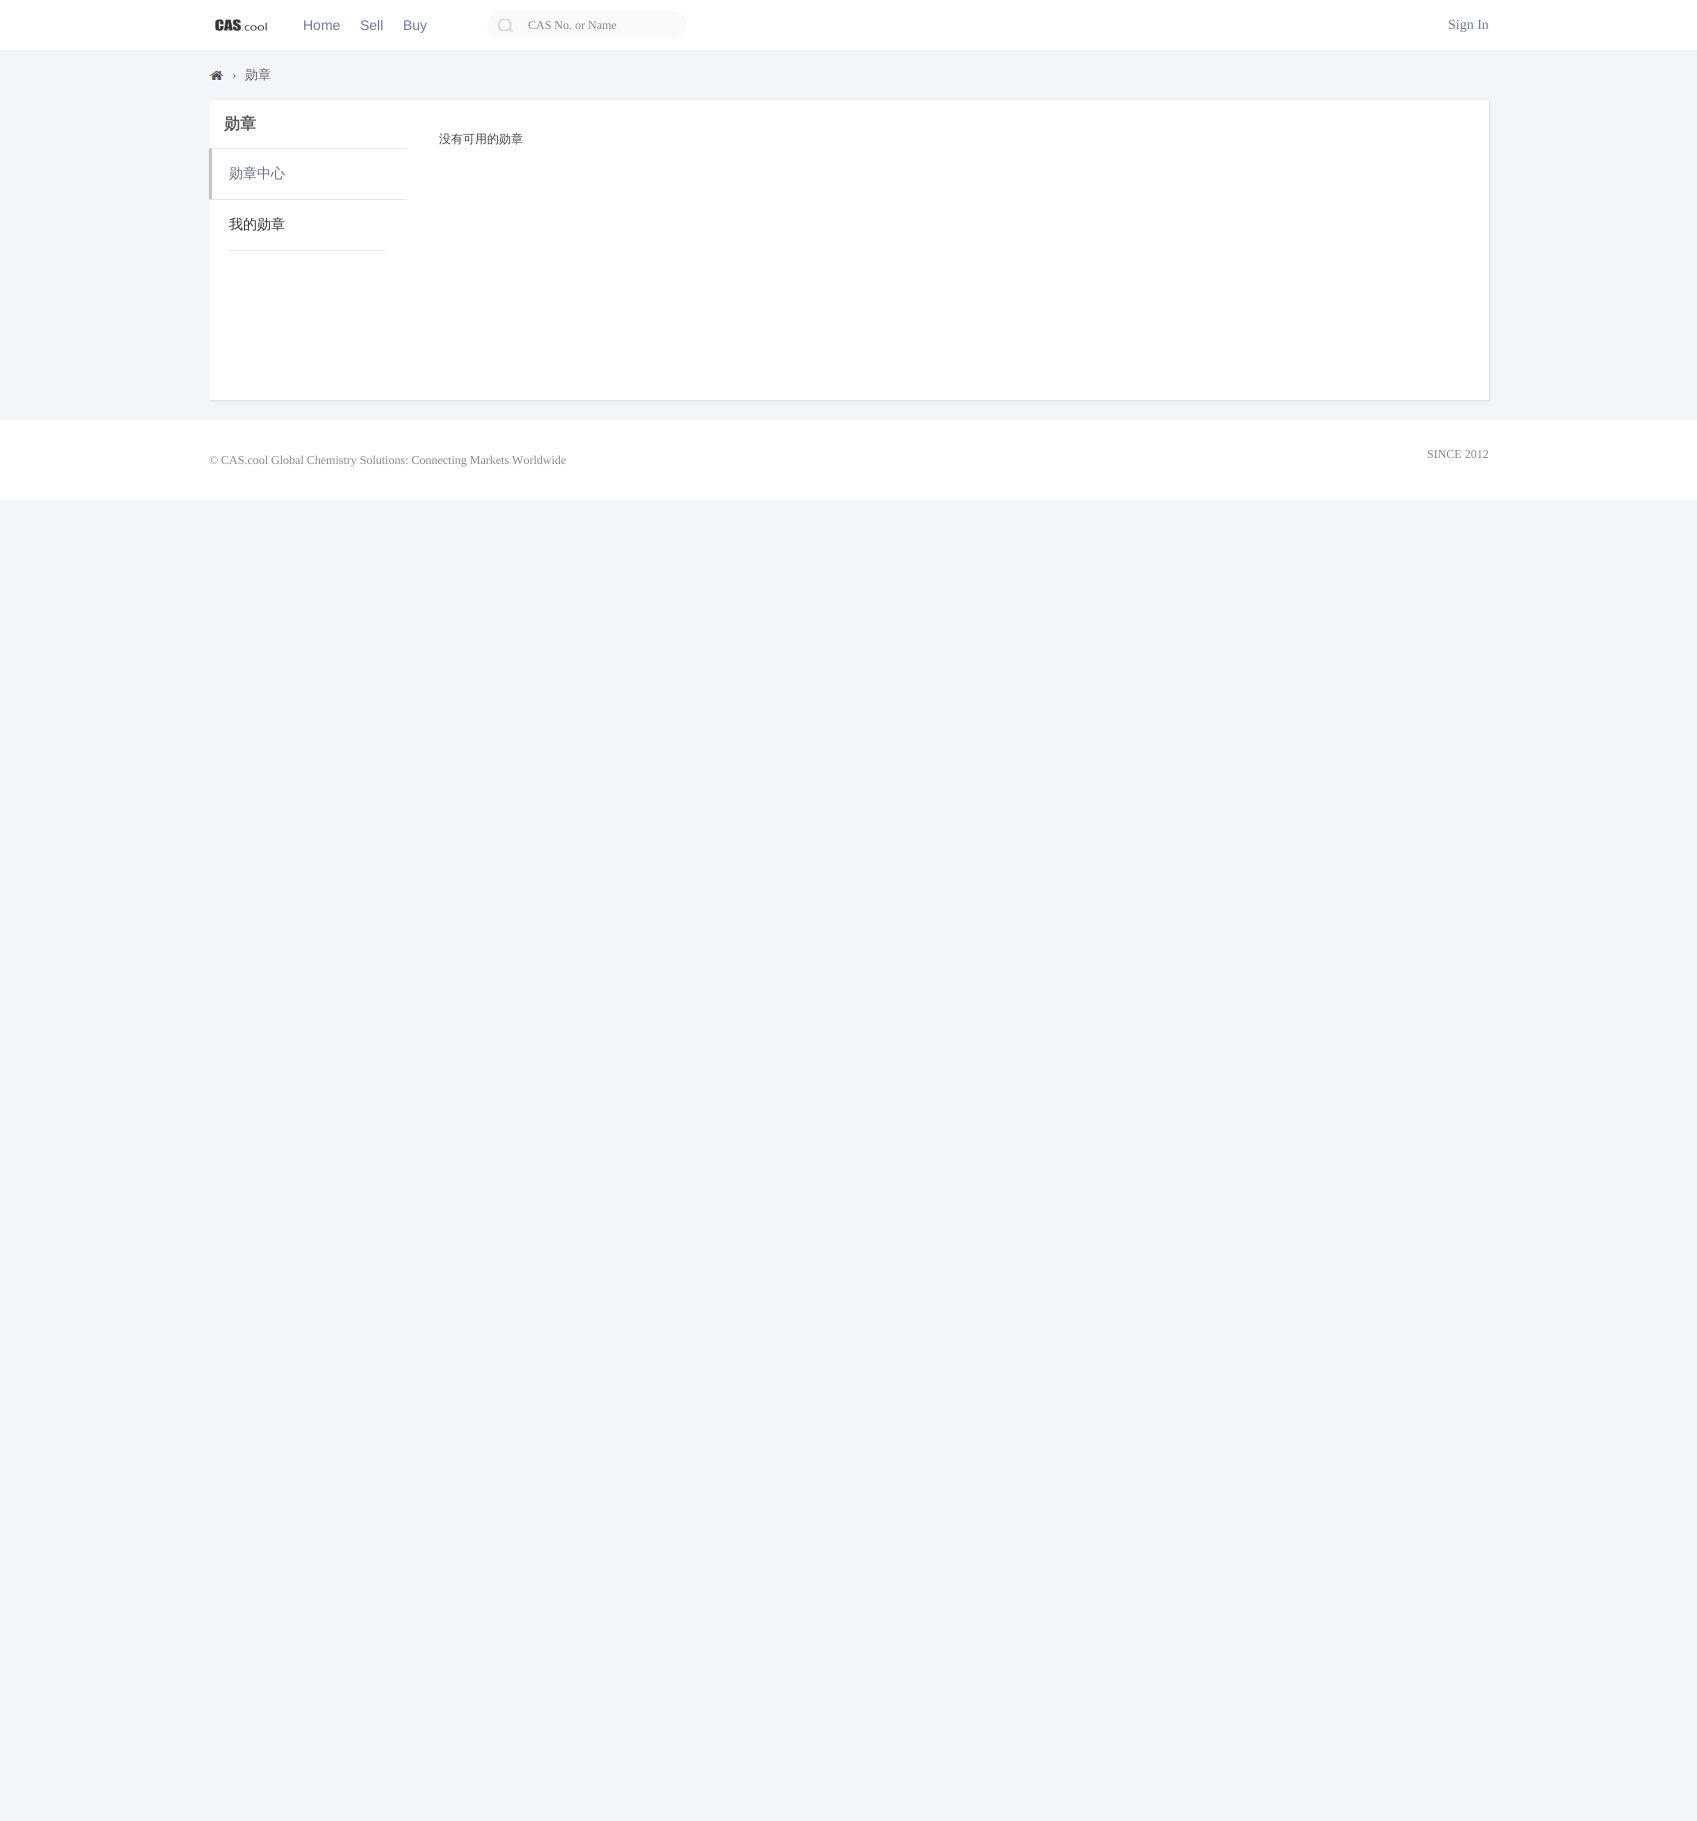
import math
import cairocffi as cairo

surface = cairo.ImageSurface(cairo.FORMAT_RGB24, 1697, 1821)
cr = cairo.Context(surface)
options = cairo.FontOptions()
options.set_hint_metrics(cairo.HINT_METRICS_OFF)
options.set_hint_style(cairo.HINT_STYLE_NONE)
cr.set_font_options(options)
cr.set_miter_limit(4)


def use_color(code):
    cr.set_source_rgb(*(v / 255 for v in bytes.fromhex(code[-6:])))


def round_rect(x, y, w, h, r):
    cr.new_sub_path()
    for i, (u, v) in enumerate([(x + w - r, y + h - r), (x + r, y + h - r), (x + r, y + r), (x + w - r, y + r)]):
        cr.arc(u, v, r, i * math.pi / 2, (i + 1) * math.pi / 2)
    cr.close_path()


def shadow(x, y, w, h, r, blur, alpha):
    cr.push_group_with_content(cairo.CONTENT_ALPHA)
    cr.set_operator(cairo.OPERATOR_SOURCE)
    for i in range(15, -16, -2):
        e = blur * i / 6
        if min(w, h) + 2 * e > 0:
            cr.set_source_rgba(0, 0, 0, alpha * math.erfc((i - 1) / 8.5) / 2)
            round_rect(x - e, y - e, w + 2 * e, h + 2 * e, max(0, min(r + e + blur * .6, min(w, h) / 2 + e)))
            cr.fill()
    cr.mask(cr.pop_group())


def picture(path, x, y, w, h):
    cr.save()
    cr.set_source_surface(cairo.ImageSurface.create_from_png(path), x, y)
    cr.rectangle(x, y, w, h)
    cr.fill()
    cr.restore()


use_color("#f2f5f9")
cr.paint()
use_color("#ffffff")
cr.rectangle(0, 0, 1697, 50)
cr.fill()
picture("img1.png", 215, 19, 52, 12)
cr.select_font_face("Liberation Sans")
cr.set_font_size(14)
use_color("#667c99")
cr.move_to(303, 30)
cr.show_text("Home")
cr.move_to(360, 30)
cr.show_text("Sell")
cr.move_to(403, 30)
cr.show_text("Buy")
use_color("#fafafa")
round_rect(487, 11, 200, 28, 14)
cr.fill()
picture("img2.png", 497, 19, 16, 13)
cr.save()
cr.rectangle(487, 11, 36, 28)
cr.clip()
use_color("#e5e5e5")
cr.set_fill_rule(cairo.FILL_RULE_EVEN_ODD)
cr.new_path()
cr.move_to(495, 36)
cr.line_to(495, 37.5)
cr.line_to(495.5, 38)
cr.close_path()
cr.move_to(528, 39)
cr.line_to(530, 39)
cr.curve_to(531, 38, 531, 37, 531, 36)
cr.curve_to(531, 37.5, 529.5, 39, 528, 39)
cr.close_path()
cr.fill()
cr.restore()
cr.select_font_face("Liberation Serif")
cr.set_font_size(12)
use_color("#888888")
cr.move_to(528, 29)
cr.show_text("CAS No. or Name")
cr.set_font_size(14)
use_color("#667c99")
cr.move_to(1448, 29)
cr.show_text("Sign In")
picture("img3.png", 209, 69, 15, 12)
cr.set_font_size(13)
use_color("#666666")
cr.move_to(232, 79)
cr.show_text("›")
cr.select_font_face("WenQuanYi Zen Hei Medium")
cr.move_to(245, 79)
cr.show_text("勋章")
use_color("#000000")
shadow(210, 101, 1280, 300, 0, 1.5, 0.1)
use_color("#ffffff")
cr.rectangle(209, 100, 1280, 300)
cr.fill()
cr.select_font_face("WenQuanYi Zen Hei", cairo.FONT_SLANT_NORMAL, cairo.FONT_WEIGHT_BOLD)
cr.set_font_size(16)
use_color("#555555")
cr.move_to(224, 129)
cr.show_text("勋章")
use_color("#e6e6e6")
cr.new_path()
cr.move_to(209, 148)
cr.line_to(407, 148)
cr.line_to(407, 149)
cr.line_to(212, 149)
cr.close_path()
cr.fill()
cr.new_path()
cr.move_to(407, 200)
cr.line_to(209, 200)
cr.line_to(212, 199)
cr.line_to(407, 199)
cr.close_path()
cr.fill()
use_color("#c5c5c5")
cr.new_path()
cr.move_to(209, 200)
cr.line_to(209, 148)
cr.line_to(212, 149)
cr.line_to(212, 199)
cr.close_path()
cr.fill()
cr.select_font_face("WenQuanYi Zen Hei Medium")
cr.set_font_size(14)
use_color("#626f84")
cr.move_to(229, 178)
cr.show_text("勋章中心")
use_color("#e6e6e6")
cr.rectangle(229, 250, 156, 1)
cr.fill()
use_color("#333333")
cr.move_to(229, 229)
cr.show_text("我的勋章")
cr.set_font_size(12)
use_color("#444444")
cr.move_to(439, 143)
cr.show_text("没有可用的勋章")
use_color("#ffffff")
cr.rectangle(0, 420, 1697, 80)
cr.fill()
cr.select_font_face("Liberation Serif")
use_color("#888888")
cr.move_to(209, 464)
cr.show_text("© CAS.cool Global Chemistry Solutions: Connecting Markets Worldwide")
cr.move_to(1427, 458)
cr.show_text("SINCE 2012")
surface.write_to_png("result.png")
